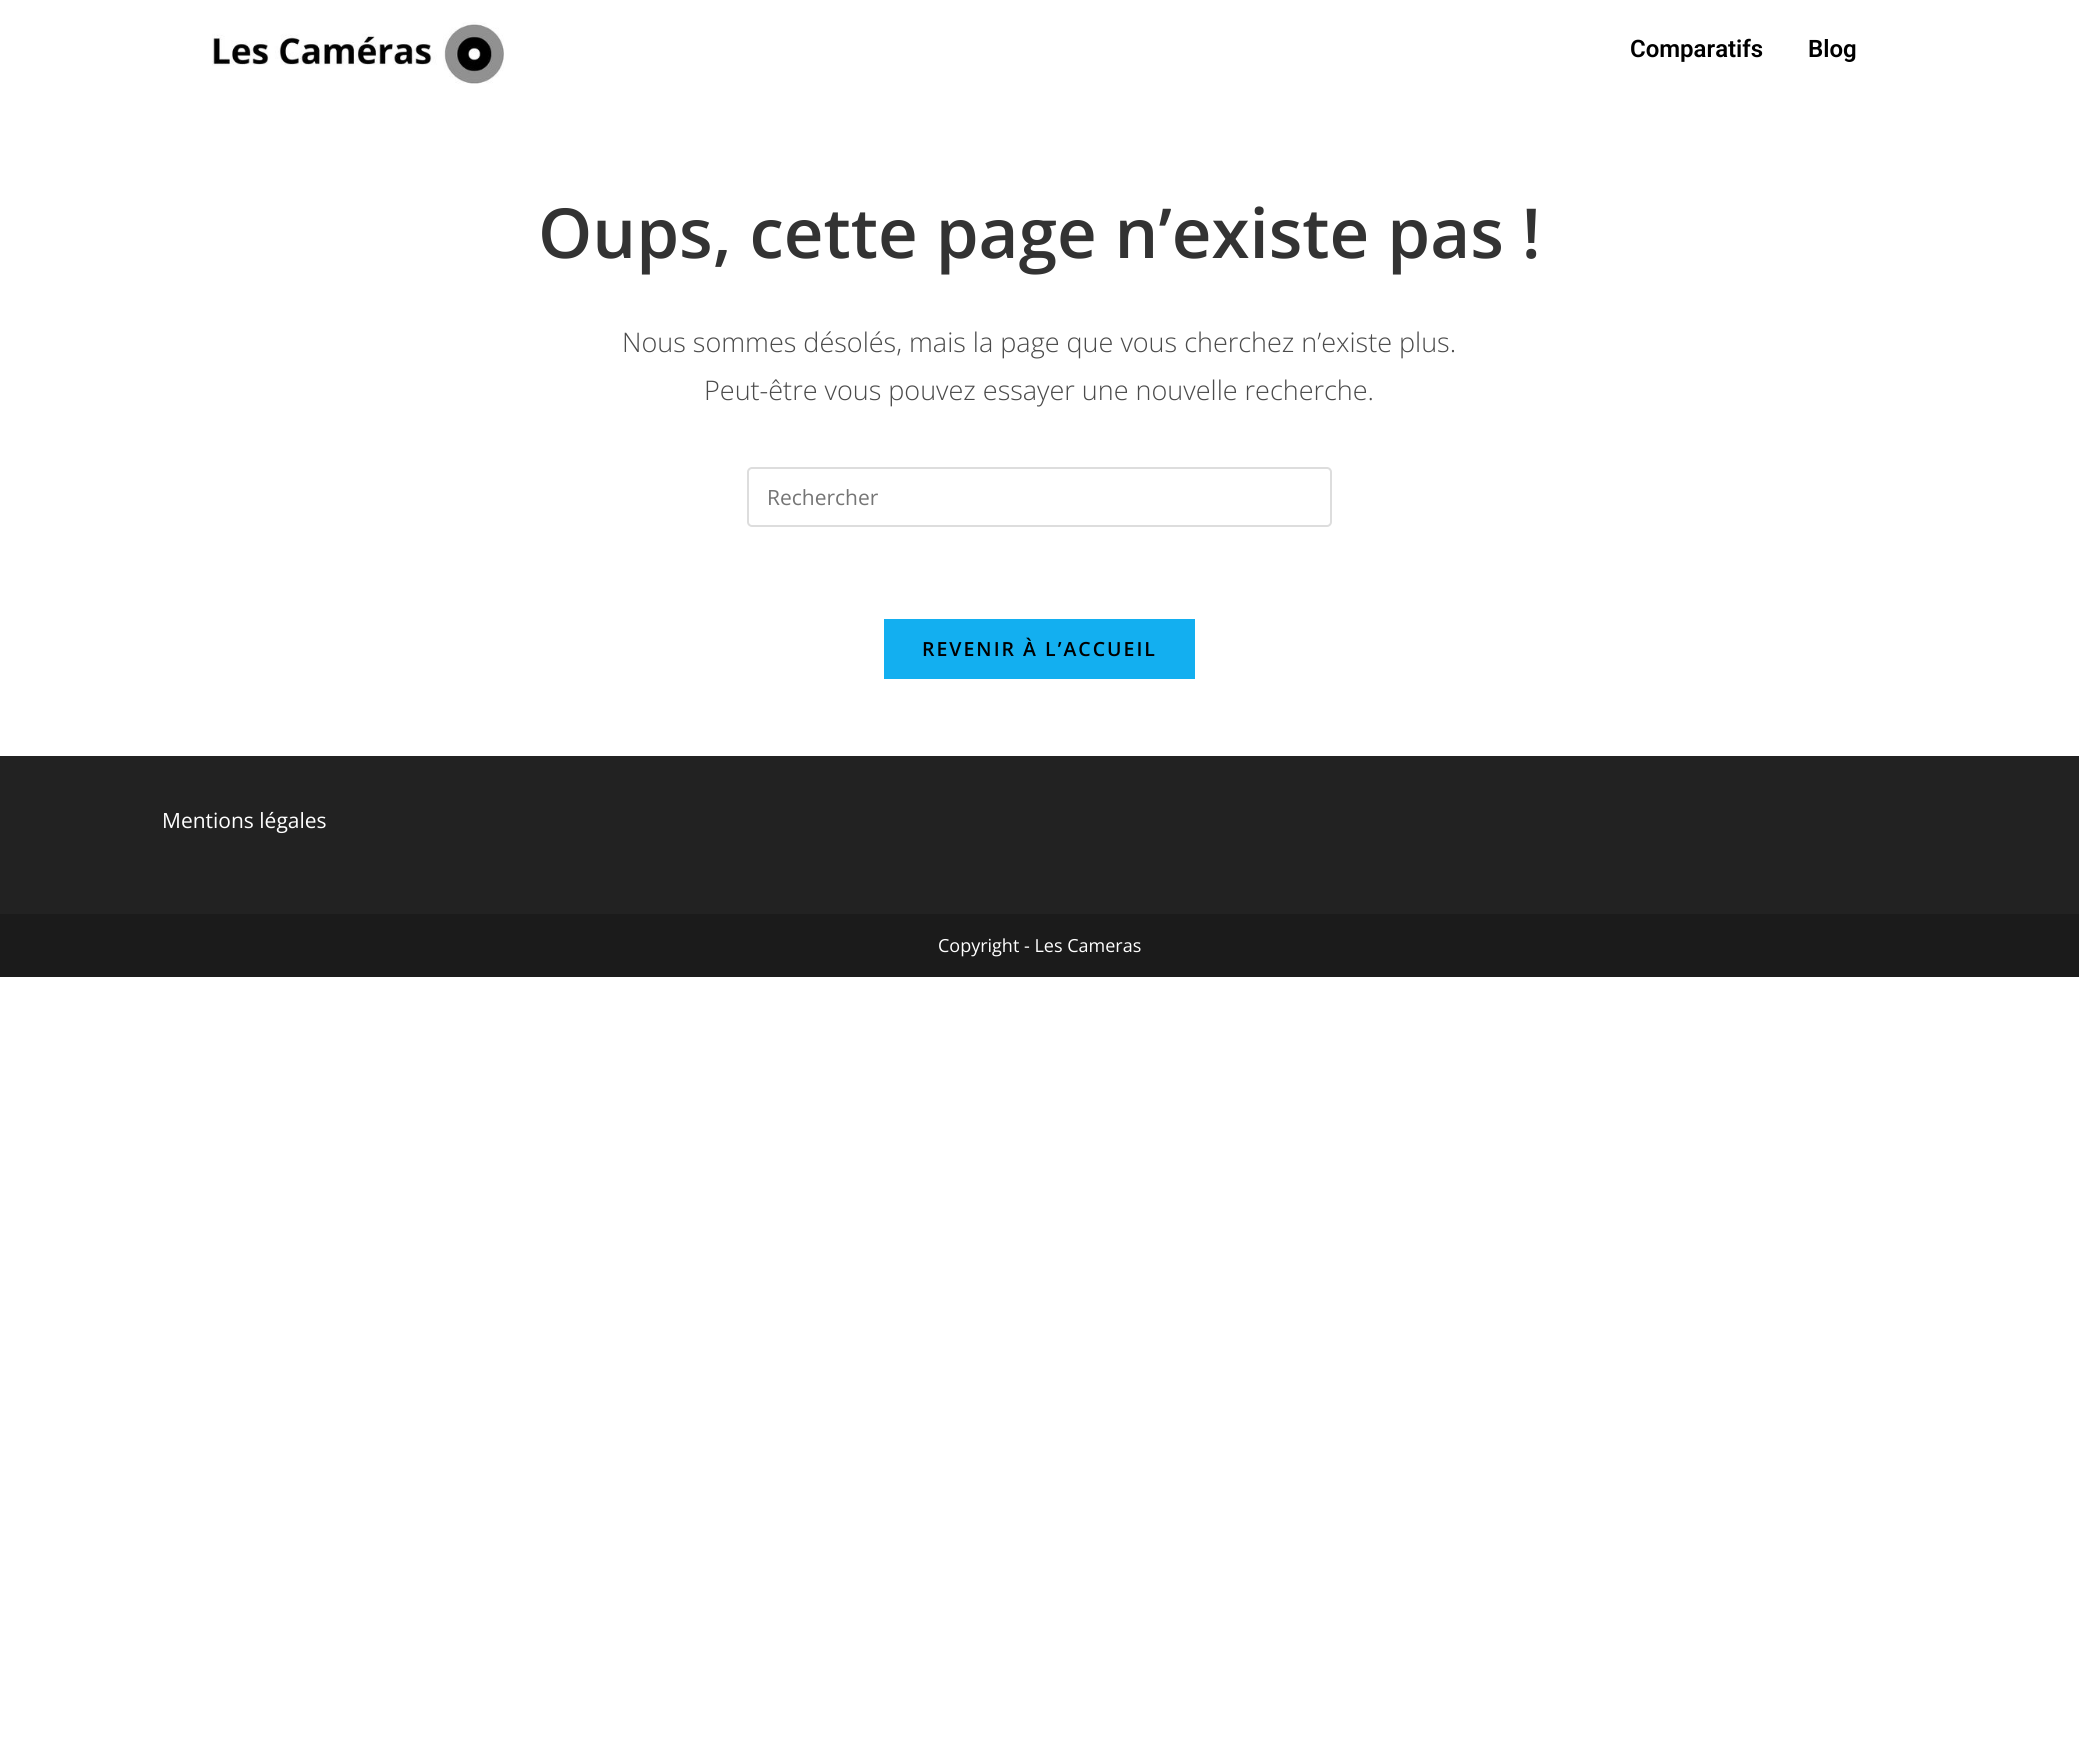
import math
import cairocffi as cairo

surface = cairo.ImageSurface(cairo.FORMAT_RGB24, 2079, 1742)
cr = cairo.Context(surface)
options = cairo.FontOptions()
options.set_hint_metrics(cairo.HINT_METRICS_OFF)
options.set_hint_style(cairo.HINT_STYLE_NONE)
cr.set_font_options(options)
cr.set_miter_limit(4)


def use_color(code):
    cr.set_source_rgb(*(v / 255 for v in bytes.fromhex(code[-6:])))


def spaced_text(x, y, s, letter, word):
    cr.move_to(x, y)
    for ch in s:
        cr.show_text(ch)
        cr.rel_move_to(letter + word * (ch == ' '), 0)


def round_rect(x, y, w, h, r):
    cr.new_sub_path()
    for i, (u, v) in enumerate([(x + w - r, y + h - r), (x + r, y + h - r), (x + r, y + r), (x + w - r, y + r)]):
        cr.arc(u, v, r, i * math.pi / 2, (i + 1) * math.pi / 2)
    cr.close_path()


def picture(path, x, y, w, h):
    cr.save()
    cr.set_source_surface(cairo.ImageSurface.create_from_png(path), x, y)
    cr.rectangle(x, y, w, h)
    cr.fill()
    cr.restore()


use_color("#ffffff")
cr.paint()
picture("img1.png", 212, 22, 292, 62)
cr.select_font_face("Roboto SemiBold")
cr.set_font_size(24)
use_color("#000000")
cr.move_to(1630, 57)
cr.show_text("Comparatifs")
cr.move_to(1808, 57)
cr.show_text("Blog")
cr.select_font_face("Open Sans SemiBold")
cr.set_font_size(69)
use_color("#333333")
cr.move_to(538, 258)
cr.show_text("Oups, cette page n’existe pas !")
cr.select_font_face("Open Sans Light")
cr.set_font_size(27)
use_color("#4a4a4a")
cr.move_to(622, 352)
cr.show_text("Nous sommes désolés, mais la page que vous cherchez n’existe plus.")
cr.move_to(704, 400)
cr.show_text("Peut-être vous pouvez essayer une nouvelle recherche.")
round_rect(748, 468, 583, 58, 4)
use_color("#dddddd")
cr.stroke()
cr.select_font_face("Open Sans")
cr.set_font_size(21)
use_color("#757575")
cr.move_to(767, 505)
cr.show_text("Rechercher")
use_color("#13aff0")
cr.rectangle(884, 619, 311, 60)
cr.fill()
cr.select_font_face("Open Sans SemiBold")
cr.set_font_size(19.5)
use_color("#000000")
spaced_text(922, 656, "REVENIR À L’ACCUEIL", 2, 0)
use_color("#222222")
cr.rectangle(0, 756, 2079, 158)
cr.fill()
cr.select_font_face("Open Sans")
cr.set_font_size(21)
use_color("#ffffff")
cr.move_to(162, 828)
cr.show_text("Mentions légales")
use_color("#1b1b1b")
cr.rectangle(0, 914, 2079, 63)
cr.fill()
cr.set_font_size(18)
use_color("#ffffff")
cr.move_to(938, 952)
cr.show_text("Copyright - Les Cameras")
surface.write_to_png("result.png")
